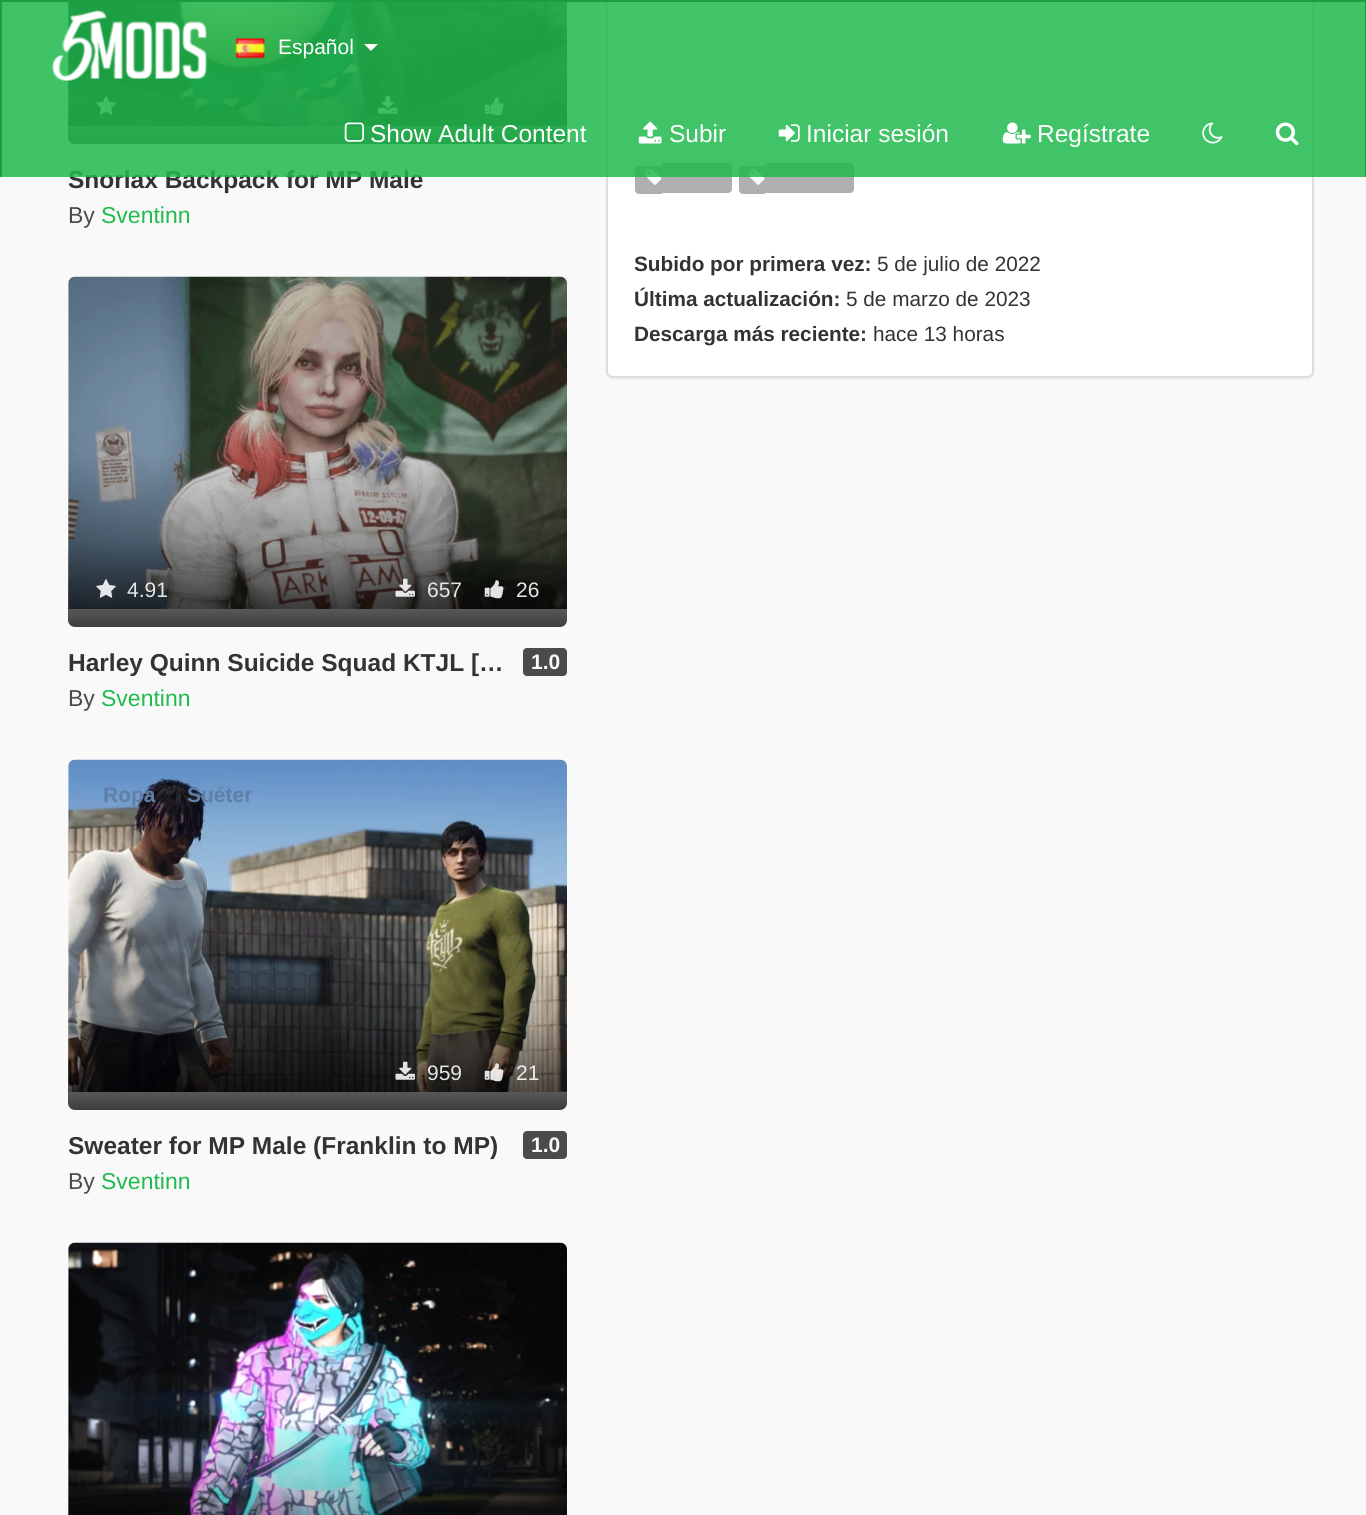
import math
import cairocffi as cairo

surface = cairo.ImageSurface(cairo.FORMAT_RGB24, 1366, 1515)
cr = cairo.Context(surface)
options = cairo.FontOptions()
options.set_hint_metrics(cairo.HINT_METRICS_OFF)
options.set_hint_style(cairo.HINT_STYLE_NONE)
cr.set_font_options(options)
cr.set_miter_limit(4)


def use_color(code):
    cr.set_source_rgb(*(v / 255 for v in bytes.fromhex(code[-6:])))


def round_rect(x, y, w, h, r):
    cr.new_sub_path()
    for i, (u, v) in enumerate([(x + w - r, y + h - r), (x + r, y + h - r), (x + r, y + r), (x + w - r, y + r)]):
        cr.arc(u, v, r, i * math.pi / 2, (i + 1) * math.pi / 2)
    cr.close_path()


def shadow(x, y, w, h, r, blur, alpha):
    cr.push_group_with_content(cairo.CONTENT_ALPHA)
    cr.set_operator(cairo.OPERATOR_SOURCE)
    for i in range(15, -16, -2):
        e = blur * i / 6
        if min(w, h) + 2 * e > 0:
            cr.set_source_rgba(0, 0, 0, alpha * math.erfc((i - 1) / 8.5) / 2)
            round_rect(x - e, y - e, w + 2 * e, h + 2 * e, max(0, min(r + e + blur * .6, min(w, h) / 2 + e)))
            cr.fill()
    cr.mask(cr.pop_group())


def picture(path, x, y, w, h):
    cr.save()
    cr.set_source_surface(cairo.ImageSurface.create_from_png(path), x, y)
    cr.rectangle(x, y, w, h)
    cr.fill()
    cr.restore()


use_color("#f9f9f9")
cr.paint()
picture("img9.png", 68, 2, 499, 124)
gradient = cairo.LinearGradient(318, -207, 318, 144)
gradient.add_color_stop_rgba(0.5, 0, 0, 0, 0)
gradient.add_color_stop_rgba(0.75, 0, 0, 0, 0.25)
gradient.add_color_stop_rgba(1, 0, 0, 0, 0.75)
cr.set_source(gradient)
round_rect(68, -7, 499, 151, 7)
cr.fill()
picture("img10.png", 96, 96, 20, 19)
picture("img11.png", 378, 95, 20, 19)
picture("img12.png", 484, 97, 20, 19)
cr.select_font_face("Liberation Sans", cairo.FONT_SLANT_NORMAL, cairo.FONT_WEIGHT_BOLD)
cr.set_font_size(24.5)
use_color("#333333")
cr.move_to(68, 188)
cr.show_text("Snorlax Backpack for MP Male")
use_color("#000000")
shadow(606, -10, 708, 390, 7, 1, 0.05)
use_color("#ffffff")
round_rect(607, -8, 706, 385, 6)
cr.fill_preserve()
use_color("#dddddd")
cr.stroke()
use_color("#afafaf")
cr.new_path()
cr.move_to(639, 166)
cr.line_to(662, 166)
cr.line_to(662, 194)
cr.line_to(639, 194)
cr.curve_to(637, 194, 635, 192, 635, 190)
cr.line_to(635, 170)
cr.curve_to(635, 168, 637, 166, 639, 166)
cr.close_path()
cr.fill()
cr.new_path()
cr.move_to(662, 163)
cr.line_to(728, 163)
cr.curve_to(730, 163, 732, 165, 732, 167)
cr.line_to(732, 189)
cr.curve_to(732, 191, 730, 193, 728, 193)
cr.line_to(662, 193)
cr.close_path()
cr.fill()
picture("img21.png", 645, 169, 17, 16)
cr.new_path()
cr.move_to(743, 166)
cr.line_to(765, 166)
cr.line_to(765, 194)
cr.line_to(743, 194)
cr.curve_to(741, 194, 739, 192, 739, 190)
cr.line_to(739, 170)
cr.curve_to(739, 168, 741, 166, 743, 166)
cr.close_path()
cr.fill()
cr.new_path()
cr.move_to(765, 163)
cr.line_to(850, 163)
cr.curve_to(852, 163, 854, 165, 854, 167)
cr.line_to(854, 189)
cr.curve_to(854, 191, 852, 193, 850, 193)
cr.line_to(765, 193)
cr.close_path()
cr.fill()
picture("img22.png", 749, 169, 16, 16)
cr.set_source_rgba(0.125, 0.729, 0.306, 0.85)
cr.rectangle(2, 2, 1363, 175)
cr.fill()
use_color("#1b9e42")
cr.rectangle(0, 0, 1366, 2)
cr.fill()
cr.rectangle(1365, 0, 1, 177)
cr.fill()
cr.rectangle(0, 0, 2, 177)
cr.fill()
picture("img1.png", 52, 10, 155, 71)
picture("img2.png", 235, 38, 30, 21)
cr.select_font_face("Liberation Sans")
cr.set_font_size(21)
use_color("#ffffff")
cr.move_to(278, 54)
cr.show_text("Español")
cr.new_path()
cr.move_to(364, 44)
cr.line_to(378, 44)
cr.line_to(371, 51)
cr.close_path()
cr.fill()
picture("img3.png", 344, 122, 20, 20)
cr.set_font_size(24.5)
cr.move_to(370, 142)
cr.show_text("Show Adult Content")
picture("img4.png", 638, 121, 24, 23)
cr.move_to(669, 142)
cr.show_text("Subir")
picture("img5.png", 778, 124, 22, 18)
cr.move_to(806, 142)
cr.show_text("Iniciar sesión")
picture("img6.png", 1002, 122, 29, 22)
cr.move_to(1037, 142)
cr.show_text("Regístrate")
picture("img7.png", 1202, 122, 21, 22)
picture("img8.png", 1275, 122, 24, 24)
cr.set_font_size(23)
use_color("#4b4b4b")
cr.move_to(68, 223)
cr.show_text("By")
use_color("#20ba4e")
cr.move_to(101, 223)
cr.show_text("Sventinn")
picture("img13.png", 68, 276, 499, 333)
gradient = cairo.LinearGradient(318, 277, 318, 627)
gradient.add_color_stop_rgba(0.5, 0, 0, 0, 0)
gradient.add_color_stop_rgba(0.75, 0, 0, 0, 0.25)
gradient.add_color_stop_rgba(1, 0, 0, 0, 0.75)
cr.set_source(gradient)
round_rect(68, 277, 499, 350, 7)
cr.fill()
picture("img14.png", 96, 579, 20, 19)
cr.set_font_size(21)
use_color("#e6e6e7")
cr.move_to(127, 597)
cr.show_text("4.91")
picture("img15.png", 395, 578, 20, 19)
cr.move_to(427, 597)
cr.show_text("657")
picture("img16.png", 484, 580, 20, 19)
cr.move_to(516, 597)
cr.show_text("26")
cr.select_font_face("Liberation Sans", cairo.FONT_SLANT_NORMAL, cairo.FONT_WEIGHT_BOLD)
cr.set_font_size(24.5)
use_color("#333333")
cr.move_to(68, 671)
cr.show_text("Harley Quinn Suicide Squad KTJL […")
use_color("#4b4b4b")
round_rect(523, 648, 44, 28, 4)
cr.fill()
cr.set_font_size(21)
use_color("#f9f9f9")
cr.move_to(531, 669)
cr.show_text("1.0")
cr.select_font_face("Liberation Sans")
cr.set_font_size(23)
use_color("#4b4b4b")
cr.move_to(68, 706)
cr.show_text("By")
use_color("#20ba4e")
cr.move_to(101, 706)
cr.show_text("Sventinn")
picture("img17.png", 68, 759, 499, 333)
gradient = cairo.LinearGradient(318, 760, 318, 1110)
gradient.add_color_stop_rgba(0.5, 0, 0, 0, 0)
gradient.add_color_stop_rgba(0.75, 0, 0, 0, 0.25)
gradient.add_color_stop_rgba(1, 0, 0, 0, 0.75)
cr.set_source(gradient)
round_rect(68, 760, 499, 350, 7)
cr.fill()
cr.select_font_face("Liberation Sans", cairo.FONT_SLANT_NORMAL, cairo.FONT_WEIGHT_BOLD)
cr.set_font_size(21)
use_color("#607fa7")
cr.move_to(103, 802)
cr.show_text("Ropa")
cr.move_to(187, 802)
cr.show_text("Suéter")
picture("img18.png", 395, 1061, 20, 19)
cr.select_font_face("Liberation Sans")
use_color("#e6e6e7")
cr.move_to(427, 1080)
cr.show_text("959")
picture("img19.png", 484, 1063, 20, 19)
use_color("#ececeb")
cr.move_to(516, 1080)
cr.show_text("21")
cr.select_font_face("Liberation Sans", cairo.FONT_SLANT_NORMAL, cairo.FONT_WEIGHT_BOLD)
cr.set_font_size(24.5)
use_color("#333333")
cr.move_to(68, 1154)
cr.show_text("Sweater for MP Male (Franklin to MP)")
use_color("#4b4b4b")
round_rect(523, 1131, 44, 28, 4)
cr.fill()
cr.set_font_size(21)
use_color("#f9f9f9")
cr.move_to(531, 1152)
cr.show_text("1.0")
cr.select_font_face("Liberation Sans")
cr.set_font_size(23)
use_color("#4b4b4b")
cr.move_to(68, 1189)
cr.show_text("By")
use_color("#20ba4e")
cr.move_to(101, 1189)
cr.show_text("Sventinn")
picture("img20.png", 68, 1242, 499, 273)
gradient = cairo.LinearGradient(318, 1243, 318, 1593)
gradient.add_color_stop_rgba(0.5, 0, 0, 0, 0)
gradient.add_color_stop_rgba(0.75, 0, 0, 0, 0.25)
gradient.add_color_stop_rgba(1, 0, 0, 0, 0.75)
cr.set_source(gradient)
cr.rectangle(68, 1426, 499, 89)
cr.fill()
cr.select_font_face("Liberation Sans", cairo.FONT_SLANT_NORMAL, cairo.FONT_WEIGHT_BOLD)
cr.set_font_size(20.75)
use_color("#333333")
cr.move_to(634, 271)
cr.show_text("Subido por primera vez:")
cr.select_font_face("Liberation Sans")
cr.move_to(877, 271)
cr.show_text("5 de julio de 2022")
cr.select_font_face("Liberation Sans", cairo.FONT_SLANT_NORMAL, cairo.FONT_WEIGHT_BOLD)
cr.move_to(634, 306)
cr.show_text("Última actualización:")
cr.select_font_face("Liberation Sans")
cr.move_to(846, 306)
cr.show_text("5 de marzo de 2023")
cr.select_font_face("Liberation Sans", cairo.FONT_SLANT_NORMAL, cairo.FONT_WEIGHT_BOLD)
cr.move_to(634, 341)
cr.show_text("Descarga más reciente:")
cr.select_font_face("Liberation Sans")
cr.move_to(873, 341)
cr.show_text("hace 13 horas")
surface.write_to_png("result.png")
